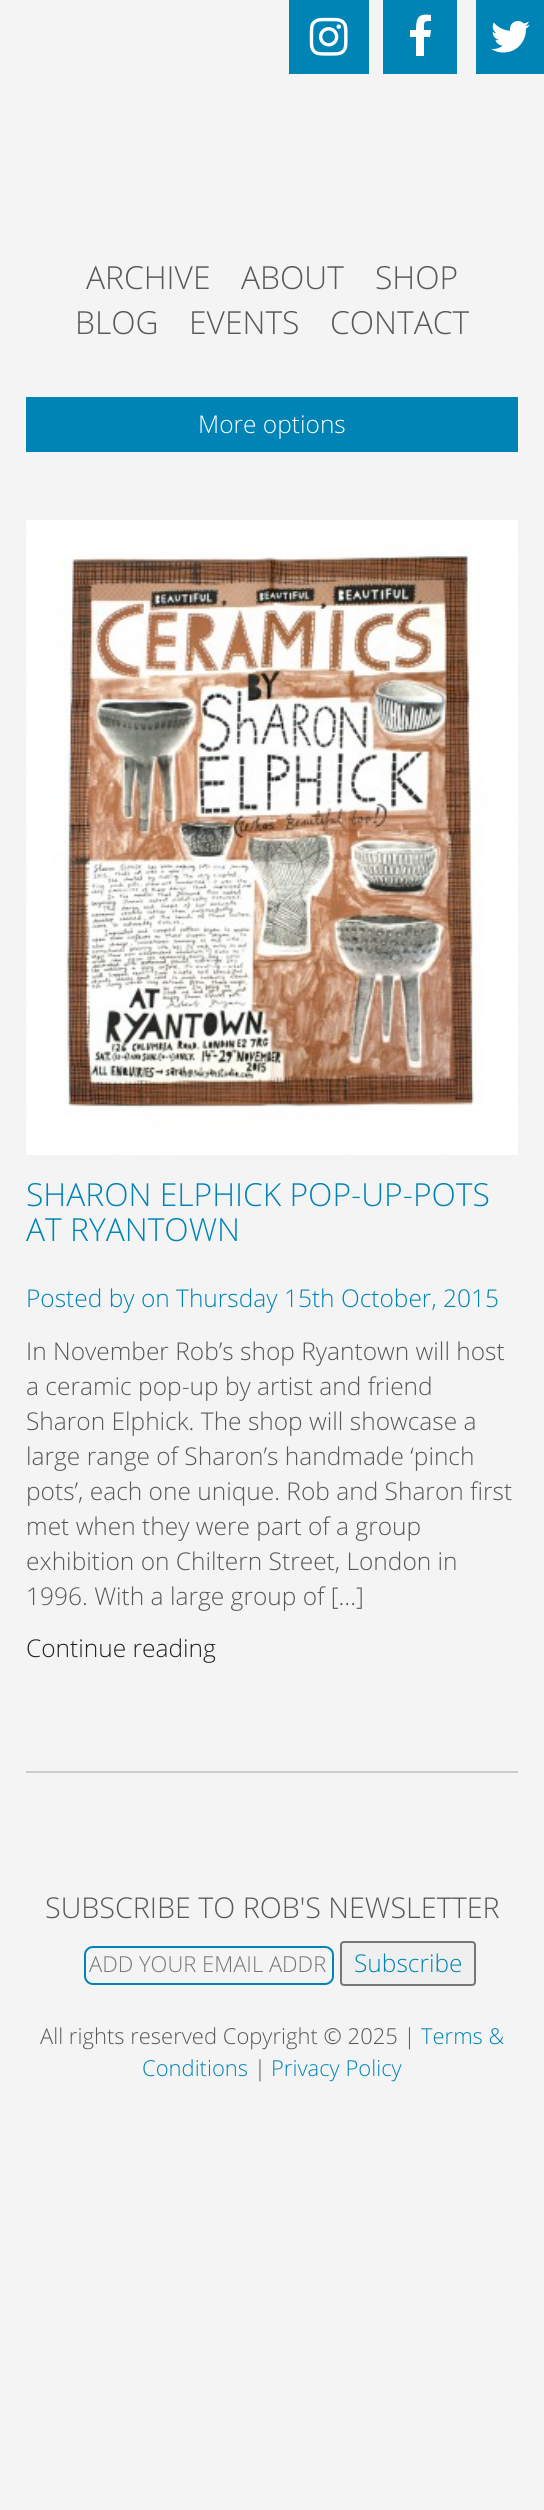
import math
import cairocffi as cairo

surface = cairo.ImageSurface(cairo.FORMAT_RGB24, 544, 2510)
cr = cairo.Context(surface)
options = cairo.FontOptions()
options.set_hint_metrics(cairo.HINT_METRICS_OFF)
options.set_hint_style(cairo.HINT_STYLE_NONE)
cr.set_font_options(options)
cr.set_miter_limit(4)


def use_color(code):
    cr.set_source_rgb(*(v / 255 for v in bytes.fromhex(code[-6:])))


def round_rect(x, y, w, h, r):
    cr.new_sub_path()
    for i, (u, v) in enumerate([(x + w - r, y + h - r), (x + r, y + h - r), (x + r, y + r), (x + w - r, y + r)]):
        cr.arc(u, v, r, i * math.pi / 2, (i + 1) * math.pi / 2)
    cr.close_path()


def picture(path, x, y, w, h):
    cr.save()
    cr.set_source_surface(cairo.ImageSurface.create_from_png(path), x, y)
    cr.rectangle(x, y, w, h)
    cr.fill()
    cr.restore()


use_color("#f4f4f4")
cr.paint()
use_color("#0084b6")
cr.rectangle(289, 0, 80, 74)
cr.fill()
picture("img1.png", 309, 17, 39, 39)
cr.rectangle(383, 0, 74, 74)
cr.fill()
use_color("#ffffff")
cr.new_path()
cr.move_to(431, 15)
cr.curve_to(418, 13, 416, 18, 416, 30)
cr.line_to(410, 30)
cr.line_to(410, 37)
cr.line_to(416, 37)
cr.line_to(416, 56)
cr.line_to(424, 56)
cr.line_to(424, 37)
cr.line_to(430, 37)
cr.line_to(431, 30)
cr.line_to(424, 30)
cr.curve_to(424, 22, 423, 21, 431, 21)
cr.close_path()
cr.fill()
use_color("#0084b6")
cr.rectangle(476, 0, 68, 74)
cr.fill()
picture("img2.png", 491, 21, 39, 32)
cr.select_font_face("Open Sans Light")
cr.set_font_size(31.8)
use_color("#575959")
cr.move_to(86, 289)
cr.show_text("ARCHIVE")
cr.move_to(241, 289)
cr.show_text("ABOUT")
cr.move_to(375, 289)
cr.show_text("SHOP")
cr.move_to(75, 334)
cr.show_text("BLOG")
cr.move_to(189, 334)
cr.show_text("EVENTS")
cr.move_to(330, 334)
cr.show_text("CONTACT")
use_color("#0084b6")
cr.rectangle(26, 397, 492, 55)
cr.fill()
cr.set_font_size(24.5)
use_color("#ffffff")
cr.move_to(198, 433)
cr.show_text("More options")
picture("img3.png", 26, 520, 492, 635)
cr.set_font_size(31.8)
use_color("#0084b6")
cr.move_to(26, 1206)
cr.show_text("SHARON ELPHICK POP-UP-POTS")
cr.move_to(26, 1241)
cr.show_text("AT RYANTOWN")
cr.set_font_size(24.5)
cr.move_to(26, 1307)
cr.show_text("Posted by on Thursday 15th October, 2015")
use_color("#575959")
cr.move_to(26, 1360)
cr.show_text("In November Rob’s shop Ryantown will host")
cr.move_to(26, 1395)
cr.show_text("a ceramic pop-up by artist and friend")
cr.move_to(26, 1430)
cr.show_text("Sharon Elphick. The shop will showcase a")
cr.move_to(26, 1465)
cr.show_text("large range of Sharon’s handmade ‘pinch")
cr.move_to(26, 1500)
cr.show_text("pots’, each one unique. Rob and Sharon first")
cr.move_to(26, 1535)
cr.show_text("met when they were part of a group")
cr.move_to(26, 1570)
cr.show_text("exhibition on Chiltern Street, London in")
cr.move_to(26, 1605)
cr.show_text("1996. With a large group of […]")
use_color("#222222")
cr.move_to(26, 1657)
cr.show_text("Continue reading")
use_color("#cccccc")
cr.rectangle(26, 1771, 492, 2)
cr.fill()
cr.set_font_size(28.7)
use_color("#575959")
cr.move_to(45, 1918)
cr.show_text("SUBSCRIBE TO ROB'S NEWSLETTER")
round_rect(85, 1947, 248, 37, 8)
use_color("#0084b6")
cr.stroke()
cr.set_font_size(22)
use_color("#757575")
cr.move_to(89, 1972)
cr.show_text("ADD YOUR EMAIL ADDR")
use_color("#efefef")
round_rect(341, 1942, 134, 43, 3)
cr.fill_preserve()
use_color("#767676")
cr.stroke()
cr.set_font_size(24.5)
use_color("#0084b6")
cr.move_to(354, 1972)
cr.show_text("Subscribe")
cr.set_font_size(22)
use_color("#575959")
cr.move_to(40, 2044)
cr.show_text("All rights reserved Copyright © 2025 |")
use_color("#0084b6")
cr.move_to(421, 2044)
cr.show_text("Terms &")
cr.move_to(142, 2076)
cr.show_text("Conditions")
use_color("#575959")
cr.move_to(254, 2076)
cr.show_text("|")
use_color("#0084b6")
cr.move_to(271, 2076)
cr.show_text("Privacy Policy")
surface.write_to_png("result.png")
